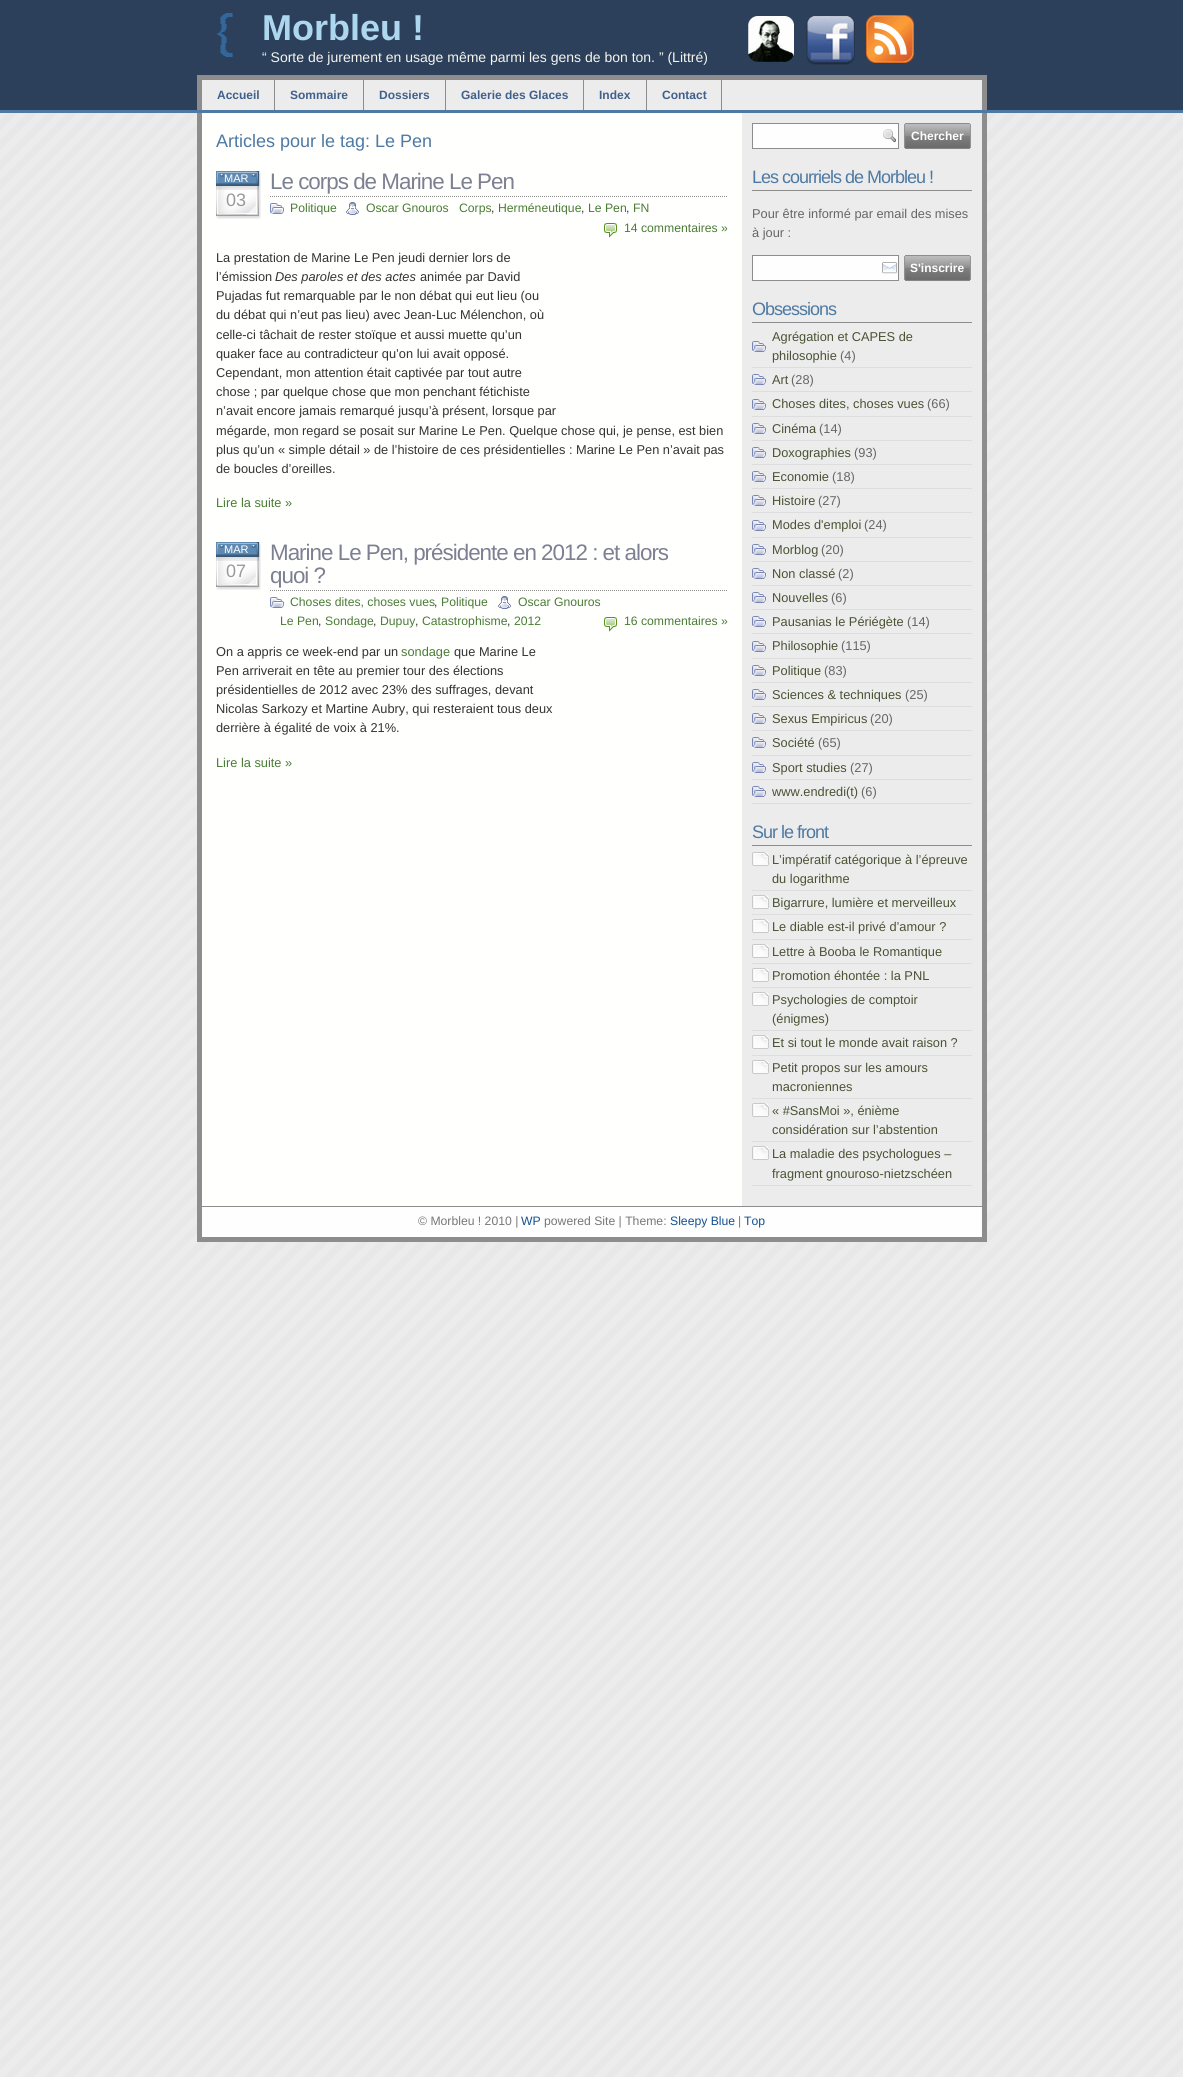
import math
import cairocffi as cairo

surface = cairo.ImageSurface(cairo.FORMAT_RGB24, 1183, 2077)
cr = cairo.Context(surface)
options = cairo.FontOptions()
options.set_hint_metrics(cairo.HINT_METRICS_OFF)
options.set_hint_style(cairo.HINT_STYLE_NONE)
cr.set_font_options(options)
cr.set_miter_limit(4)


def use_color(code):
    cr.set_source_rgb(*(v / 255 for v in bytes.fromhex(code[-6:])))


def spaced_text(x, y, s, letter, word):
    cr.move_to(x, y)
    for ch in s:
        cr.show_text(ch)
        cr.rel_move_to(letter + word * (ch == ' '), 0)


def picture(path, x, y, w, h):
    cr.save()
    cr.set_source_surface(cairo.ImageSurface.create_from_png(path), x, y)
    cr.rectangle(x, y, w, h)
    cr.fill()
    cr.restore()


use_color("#ffffff")
cr.paint()
picture("img1.png", 0, 113, 1183, 1964)
use_color("#2d405b")
cr.rectangle(0, 0, 1183, 110)
cr.fill()
use_color("#4e79a2")
cr.rectangle(0, 110, 1183, 3)
cr.fill()
picture("img2.png", 217, 13, 16, 44)
cr.select_font_face("Liberation Sans", cairo.FONT_SLANT_NORMAL, cairo.FONT_WEIGHT_BOLD)
cr.set_font_size(36)
use_color("#acd7ee")
cr.move_to(262, 40)
cr.show_text("Morbleu !")
picture("img3.png", 748, 16, 46, 46)
picture("img4.png", 806, 16, 49, 49)
picture("img5.png", 866, 15, 48, 48)
cr.select_font_face("Liberation Sans")
cr.set_font_size(14)
use_color("#f6f5ee")
cr.move_to(262, 62)
cr.show_text("“ Sorte de jurement en usage même parmi les gens de bon ton. ” (Littré)")
use_color("#ececec")
cr.rectangle(202, 80, 780, 30)
cr.fill()
use_color("#8d8d8d")
cr.rectangle(197, 75, 790, 5)
cr.fill()
cr.rectangle(982, 75, 5, 35)
cr.fill()
cr.rectangle(197, 75, 5, 35)
cr.fill()
cr.rectangle(274, 80, 1, 30)
cr.fill()
cr.select_font_face("Liberation Sans", cairo.FONT_SLANT_NORMAL, cairo.FONT_WEIGHT_BOLD)
cr.set_font_size(12)
use_color("#40608c")
cr.move_to(217, 99)
cr.show_text("Accueil")
use_color("#8d8d8d")
cr.rectangle(363, 80, 1, 30)
cr.fill()
use_color("#40608c")
cr.move_to(290, 99)
cr.show_text("Sommaire")
use_color("#8d8d8d")
cr.rectangle(445, 80, 1, 30)
cr.fill()
use_color("#40608c")
cr.move_to(379, 99)
cr.show_text("Dossiers")
use_color("#8d8d8d")
cr.rectangle(583, 80, 1, 30)
cr.fill()
use_color("#40608c")
cr.move_to(461, 99)
cr.show_text("Galerie des Glaces")
use_color("#8d8d8d")
cr.rectangle(646, 80, 1, 30)
cr.fill()
use_color("#40608c")
cr.move_to(599, 99)
cr.show_text("Index")
use_color("#8d8d8d")
cr.rectangle(721, 80, 1, 30)
cr.fill()
use_color("#40608c")
cr.move_to(662, 99)
cr.show_text("Contact")
use_color("#fffffe")
cr.rectangle(202, 113, 540, 1093)
cr.fill()
use_color("#ececec")
cr.rectangle(742, 113, 240, 1093)
cr.fill()
cr.select_font_face("Liberation Sans")
cr.set_font_size(18)
use_color("#4e79a2")
cr.move_to(216, 147)
cr.show_text("Articles pour le tag: Le Pen")
picture("img6.png", 216, 171, 45, 48)
cr.set_font_size(11)
use_color("#ffffff")
cr.move_to(224, 182)
cr.show_text("MAR")
cr.set_font_size(18)
use_color("#999999")
cr.move_to(226, 206)
cr.show_text("03")
cr.new_path()
cr.move_to(270, 196.5)
cr.line_to(728, 196.5)
use_color("#8d8d8d")
cr.set_line_width(1)
cr.set_dash([1, 1])
cr.stroke()
cr.set_font_size(22.4)
use_color("#7d8092")
spaced_text(270, 189, "Le corps de Marine Le Pen", -1, 0)
picture("img7.png", 270, 203, 14, 11)
cr.set_font_size(12.2)
use_color("#4a7c35")
cr.move_to(290, 212)
cr.show_text("Politique")
picture("img8.png", 346, 202, 13, 13)
cr.move_to(366, 212)
cr.show_text("Oscar Gnouros")
cr.move_to(459, 212)
cr.show_text("Corps")
use_color("#333333")
cr.move_to(491, 212)
cr.show_text(",")
use_color("#4a7c35")
cr.move_to(498, 212)
cr.show_text("Herméneutique")
use_color("#333333")
cr.move_to(581, 212)
cr.show_text(",")
use_color("#4a7c35")
cr.move_to(588, 212)
cr.show_text("Le Pen")
use_color("#333333")
cr.move_to(626, 212)
cr.show_text(",")
use_color("#4a7c35")
cr.move_to(633, 212)
cr.show_text("FN")
picture("img9.png", 604, 223, 13, 15)
cr.move_to(624, 232)
cr.show_text("14 commentaires »")
cr.set_font_size(12.8)
use_color("#333333")
cr.move_to(216, 262)
cr.show_text("La prestation de Marine Le Pen jeudi dernier lors de")
cr.move_to(216, 281)
cr.show_text("l’émission")
cr.select_font_face("Liberation Sans", cairo.FONT_SLANT_ITALIC)
cr.move_to(275, 281)
cr.show_text("Des paroles et des actes")
cr.select_font_face("Liberation Sans")
cr.move_to(420, 281)
cr.show_text("animée par David")
cr.move_to(216, 300)
cr.show_text("Pujadas fut remarquable par le non débat qui eut lieu (ou")
cr.move_to(216, 319)
cr.show_text("du débat qui n’eut pas lieu) avec Jean-Luc Mélenchon, où")
cr.move_to(216, 339)
cr.show_text("celle-ci tâchait de rester stoïque et aussi muette qu’un")
cr.move_to(216, 358)
cr.show_text("quaker face au contradicteur qu’on lui avait opposé.")
cr.move_to(216, 377)
cr.show_text("Cependant, mon attention était captivée par tout autre")
cr.move_to(216, 396)
cr.show_text("chose ; par quelque chose que mon penchant fétichiste")
cr.move_to(216, 415)
cr.show_text("n’avait encore jamais remarqué jusqu’à présent, lorsque par")
cr.move_to(216, 435)
cr.show_text("mégarde, mon regard se posait sur Marine Le Pen. Quelque chose qui, je pense, est bien")
cr.move_to(216, 454)
cr.show_text("plus qu’un « simple détail » de l’histoire de ces présidentielles : Marine Le Pen n’avait pas")
cr.move_to(216, 473)
cr.show_text("de boucles d’oreilles.")
use_color("#4a7c35")
cr.move_to(216, 507)
cr.show_text("Lire la suite »")
picture("img6.png", 216, 542, 45, 48)
cr.set_font_size(11)
use_color("#ffffff")
cr.move_to(224, 553)
cr.show_text("MAR")
cr.set_font_size(18)
use_color("#999999")
cr.move_to(226, 577)
cr.show_text("07")
cr.new_path()
cr.move_to(270, 590.5)
cr.line_to(728, 590.5)
use_color("#8d8d8d")
cr.stroke()
cr.set_font_size(22.4)
use_color("#7d8092")
spaced_text(270, 560, "Marine Le Pen, présidente en 2012 : et alors", -1, 0)
spaced_text(270, 583, "quoi ?", -1, 0)
picture("img7.png", 270, 597, 14, 11)
cr.set_font_size(12.2)
use_color("#4a7c35")
cr.move_to(290, 606)
cr.show_text("Choses dites, choses vues")
use_color("#333333")
cr.move_to(434, 606)
cr.show_text(",")
use_color("#4a7c35")
cr.move_to(441, 606)
cr.show_text("Politique")
picture("img8.png", 498, 596, 13, 13)
cr.move_to(518, 606)
cr.show_text("Oscar Gnouros")
cr.move_to(280, 625)
cr.show_text("Le Pen")
use_color("#333333")
cr.move_to(318, 625)
cr.show_text(",")
use_color("#4a7c35")
cr.move_to(325, 625)
cr.show_text("Sondage")
use_color("#333333")
cr.move_to(373, 625)
cr.show_text(",")
use_color("#4a7c35")
cr.move_to(380, 625)
cr.show_text("Dupuy")
use_color("#333333")
cr.move_to(415, 625)
cr.show_text(",")
use_color("#4a7c35")
cr.move_to(422, 625)
cr.show_text("Catastrophisme")
use_color("#333333")
cr.move_to(507, 625)
cr.show_text(",")
use_color("#4a7c35")
cr.move_to(514, 625)
cr.show_text("2012")
picture("img9.png", 604, 617, 13, 15)
cr.move_to(624, 625)
cr.show_text("16 commentaires »")
cr.set_font_size(12.8)
use_color("#333333")
cr.move_to(216, 656)
cr.show_text("On a appris ce week-end par un")
use_color("#4a7c35")
cr.move_to(401, 656)
cr.show_text("sondage")
use_color("#333333")
cr.move_to(454, 656)
cr.show_text("que Marine Le")
cr.move_to(216, 675)
cr.show_text("Pen arriverait en tête au premier tour des élections")
cr.move_to(216, 694)
cr.show_text("présidentielles de 2012 avec 23% des suffrages, devant")
cr.move_to(216, 713)
cr.show_text("Nicolas Sarkozy et Martine Aubry, qui resteraient tous deux")
cr.move_to(216, 732)
cr.show_text("derrière à égalité de voix à 21%.")
use_color("#4a7c35")
cr.move_to(216, 767)
cr.show_text("Lire la suite »")
use_color("#fefefe")
cr.rectangle(753, 124, 145, 24)
cr.fill()
picture("img10.png", 883, 129, 13, 14)
cr.rectangle(752.5, 123.5, 146, 25)
use_color("#8d8d8d")
cr.set_dash([])
cr.stroke()
picture("img11.png", 904, 123, 67, 26)
cr.select_font_face("Liberation Sans", cairo.FONT_SLANT_NORMAL, cairo.FONT_WEIGHT_BOLD)
cr.set_font_size(12)
use_color("#ffffff")
cr.move_to(911, 140)
cr.show_text("Chercher")
use_color("#8d8d8d")
cr.rectangle(752, 190, 220, 1)
cr.fill()
cr.select_font_face("Liberation Sans")
cr.set_font_size(18)
use_color("#4e79a2")
spaced_text(752, 183, "Les courriels de Morbleu !", -1, 0)
cr.set_font_size(12.8)
use_color("#666666")
cr.move_to(752, 218)
cr.show_text("Pour être informé par email des mises")
cr.move_to(752, 237)
cr.show_text("à jour :")
use_color("#fefefe")
cr.rectangle(753, 256, 145, 24)
cr.fill()
picture("img12.png", 882, 262, 16, 12)
cr.rectangle(752.5, 255.5, 146, 25)
use_color("#8d8d8d")
cr.stroke()
picture("img11.png", 904, 255, 67, 26)
cr.select_font_face("Liberation Sans", cairo.FONT_SLANT_NORMAL, cairo.FONT_WEIGHT_BOLD)
cr.set_font_size(12)
use_color("#ffffff")
cr.move_to(910, 272)
cr.show_text("S'inscrire")
use_color("#8d8d8d")
cr.rectangle(752, 322, 220, 1)
cr.fill()
cr.select_font_face("Liberation Sans")
cr.set_font_size(18)
use_color("#4e79a2")
spaced_text(752, 315, "Obsessions", -1, 0)
picture("img13.png", 752, 341, 14, 11)
use_color("#dddddd")
cr.rectangle(752, 367, 220, 1)
cr.fill()
cr.set_font_size(12.8)
use_color("#495233")
cr.move_to(772, 341)
cr.show_text("Agrégation et CAPES de")
cr.move_to(772, 360)
cr.show_text("philosophie")
use_color("#666666")
cr.move_to(840, 360)
cr.show_text("(4)")
picture("img13.png", 752, 374, 14, 11)
use_color("#dddddd")
cr.rectangle(752, 391, 220, 1)
cr.fill()
use_color("#495233")
cr.move_to(772, 384)
cr.show_text("Art")
use_color("#666666")
cr.move_to(791, 384)
cr.show_text("(28)")
picture("img13.png", 752, 399, 14, 11)
use_color("#dddddd")
cr.rectangle(752, 416, 220, 1)
cr.fill()
use_color("#495233")
cr.move_to(772, 408)
cr.show_text("Choses dites, choses vues")
use_color("#666666")
cr.move_to(927, 408)
cr.show_text("(66)")
picture("img13.png", 752, 423, 14, 11)
use_color("#dddddd")
cr.rectangle(752, 440, 220, 1)
cr.fill()
use_color("#495233")
cr.move_to(772, 433)
cr.show_text("Cinéma")
use_color("#666666")
cr.move_to(819, 433)
cr.show_text("(14)")
picture("img13.png", 752, 447, 14, 11)
use_color("#dddddd")
cr.rectangle(752, 464, 220, 1)
cr.fill()
use_color("#495233")
cr.move_to(772, 457)
cr.show_text("Doxographies")
use_color("#666666")
cr.move_to(854, 457)
cr.show_text("(93)")
picture("img13.png", 752, 471, 14, 11)
use_color("#dddddd")
cr.rectangle(752, 488, 220, 1)
cr.fill()
use_color("#495233")
cr.move_to(772, 481)
cr.show_text("Economie")
use_color("#666666")
cr.move_to(832, 481)
cr.show_text("(18)")
picture("img13.png", 752, 495, 14, 11)
use_color("#dddddd")
cr.rectangle(752, 512, 220, 1)
cr.fill()
use_color("#495233")
cr.move_to(772, 505)
cr.show_text("Histoire")
use_color("#666666")
cr.move_to(818, 505)
cr.show_text("(27)")
picture("img13.png", 752, 520, 14, 11)
use_color("#dddddd")
cr.rectangle(752, 537, 220, 1)
cr.fill()
use_color("#495233")
cr.move_to(772, 529)
cr.show_text("Modes d'emploi")
use_color("#666666")
cr.move_to(864, 529)
cr.show_text("(24)")
picture("img13.png", 752, 544, 14, 11)
use_color("#dddddd")
cr.rectangle(752, 561, 220, 1)
cr.fill()
use_color("#495233")
cr.move_to(772, 554)
cr.show_text("Morblog")
use_color("#666666")
cr.move_to(821, 554)
cr.show_text("(20)")
picture("img13.png", 752, 568, 14, 11)
use_color("#dddddd")
cr.rectangle(752, 585, 220, 1)
cr.fill()
use_color("#495233")
cr.move_to(772, 578)
cr.show_text("Non classé")
use_color("#666666")
cr.move_to(838, 578)
cr.show_text("(2)")
picture("img13.png", 752, 592, 14, 11)
use_color("#dddddd")
cr.rectangle(752, 609, 220, 1)
cr.fill()
use_color("#495233")
cr.move_to(772, 602)
cr.show_text("Nouvelles")
use_color("#666666")
cr.move_to(831, 602)
cr.show_text("(6)")
picture("img13.png", 752, 616, 14, 11)
use_color("#dddddd")
cr.rectangle(752, 633, 220, 1)
cr.fill()
use_color("#495233")
cr.move_to(772, 626)
cr.show_text("Pausanias le Périégète")
use_color("#666666")
cr.move_to(907, 626)
cr.show_text("(14)")
picture("img13.png", 752, 641, 14, 11)
use_color("#dddddd")
cr.rectangle(752, 658, 220, 1)
cr.fill()
use_color("#495233")
cr.move_to(772, 650)
cr.show_text("Philosophie")
use_color("#666666")
cr.move_to(841, 650)
cr.show_text("(115)")
picture("img13.png", 752, 665, 14, 11)
use_color("#dddddd")
cr.rectangle(752, 682, 220, 1)
cr.fill()
use_color("#495233")
cr.move_to(772, 675)
cr.show_text("Politique")
use_color("#666666")
cr.move_to(824, 675)
cr.show_text("(83)")
picture("img13.png", 752, 689, 14, 11)
use_color("#dddddd")
cr.rectangle(752, 706, 220, 1)
cr.fill()
use_color("#495233")
cr.move_to(772, 699)
cr.show_text("Sciences & techniques")
use_color("#666666")
cr.move_to(905, 699)
cr.show_text("(25)")
picture("img13.png", 752, 713, 14, 11)
use_color("#dddddd")
cr.rectangle(752, 730, 220, 1)
cr.fill()
use_color("#495233")
cr.move_to(772, 723)
cr.show_text("Sexus Empiricus")
use_color("#666666")
cr.move_to(870, 723)
cr.show_text("(20)")
picture("img13.png", 752, 737, 14, 11)
use_color("#dddddd")
cr.rectangle(752, 755, 220, 1)
cr.fill()
use_color("#495233")
cr.move_to(772, 747)
cr.show_text("Société")
use_color("#666666")
cr.move_to(818, 747)
cr.show_text("(65)")
picture("img13.png", 752, 762, 14, 11)
use_color("#dddddd")
cr.rectangle(752, 779, 220, 1)
cr.fill()
use_color("#495233")
cr.move_to(772, 772)
cr.show_text("Sport studies")
use_color("#666666")
cr.move_to(850, 772)
cr.show_text("(27)")
picture("img13.png", 752, 786, 14, 11)
use_color("#dddddd")
cr.rectangle(752, 803, 220, 1)
cr.fill()
use_color("#495233")
cr.move_to(772, 796)
cr.show_text("www.endredi(t)")
use_color("#666666")
cr.move_to(861, 796)
cr.show_text("(6)")
use_color("#8d8d8d")
cr.rectangle(752, 845, 220, 1)
cr.fill()
cr.set_font_size(18)
use_color("#4e79a2")
spaced_text(752, 838, "Sur le front", -1, 0)
picture("img14.png", 752, 852, 17, 14)
use_color("#dddddd")
cr.rectangle(752, 890, 220, 1)
cr.fill()
cr.set_font_size(12.8)
use_color("#495233")
cr.move_to(772, 864)
cr.show_text("L’impératif catégorique à l’épreuve")
cr.move_to(772, 883)
cr.show_text("du logarithme")
picture("img14.png", 752, 895, 17, 14)
use_color("#dddddd")
cr.rectangle(752, 914, 220, 1)
cr.fill()
use_color("#495233")
cr.move_to(772, 907)
cr.show_text("Bigarrure, lumière et merveilleux")
picture("img14.png", 752, 919, 17, 14)
use_color("#dddddd")
cr.rectangle(752, 939, 220, 1)
cr.fill()
use_color("#495233")
cr.move_to(772, 931)
cr.show_text("Le diable est-il privé d’amour ?")
picture("img14.png", 752, 944, 17, 14)
use_color("#dddddd")
cr.rectangle(752, 963, 220, 1)
cr.fill()
use_color("#495233")
cr.move_to(772, 956)
cr.show_text("Lettre à Booba le Romantique")
picture("img14.png", 752, 968, 17, 14)
use_color("#dddddd")
cr.rectangle(752, 987, 220, 1)
cr.fill()
use_color("#495233")
cr.move_to(772, 980)
cr.show_text("Promotion éhontée : la PNL")
picture("img14.png", 752, 992, 17, 14)
use_color("#dddddd")
cr.rectangle(752, 1030, 220, 1)
cr.fill()
use_color("#495233")
cr.move_to(772, 1004)
cr.show_text("Psychologies de comptoir")
cr.move_to(772, 1023)
cr.show_text("(énigmes)")
picture("img14.png", 752, 1035, 17, 14)
use_color("#dddddd")
cr.rectangle(752, 1055, 220, 1)
cr.fill()
use_color("#495233")
cr.move_to(772, 1047)
cr.show_text("Et si tout le monde avait raison ?")
picture("img14.png", 752, 1060, 17, 14)
use_color("#dddddd")
cr.rectangle(752, 1098, 220, 1)
cr.fill()
use_color("#495233")
cr.move_to(772, 1072)
cr.show_text("Petit propos sur les amours")
cr.move_to(772, 1091)
cr.show_text("macroniennes")
picture("img14.png", 752, 1103, 17, 14)
use_color("#dddddd")
cr.rectangle(752, 1141, 220, 1)
cr.fill()
use_color("#495233")
cr.move_to(772, 1115)
cr.show_text("« #SansMoi », énième")
cr.move_to(772, 1134)
cr.show_text("considération sur l’abstention")
picture("img14.png", 752, 1146, 17, 14)
use_color("#dddddd")
cr.rectangle(752, 1185, 220, 1)
cr.fill()
use_color("#495233")
cr.move_to(772, 1158)
cr.show_text("La maladie des psychologues –")
cr.move_to(772, 1178)
cr.show_text("fragment gnouroso-nietzschéen")
use_color("#fefefe")
cr.rectangle(202, 1207, 780, 30)
cr.fill()
use_color("#8d8d8d")
cr.rectangle(197, 1206, 790, 1)
cr.fill()
cr.rectangle(982, 113, 5, 1129)
cr.fill()
cr.rectangle(197, 1237, 790, 5)
cr.fill()
cr.rectangle(197, 113, 5, 1129)
cr.fill()
cr.set_font_size(12.2)
use_color("#777777")
cr.move_to(418, 1225)
cr.show_text("© Morbleu ! 2010 |")
use_color("#135193")
cr.move_to(521, 1225)
cr.show_text("WP")
use_color("#777777")
cr.move_to(544, 1225)
cr.show_text("powered Site | Theme:")
use_color("#135193")
cr.move_to(670, 1225)
cr.show_text("Sleepy Blue")
use_color("#777777")
cr.move_to(738, 1225)
cr.show_text("|")
use_color("#135193")
cr.move_to(744, 1225)
cr.show_text("Top")
surface.write_to_png("result.png")
